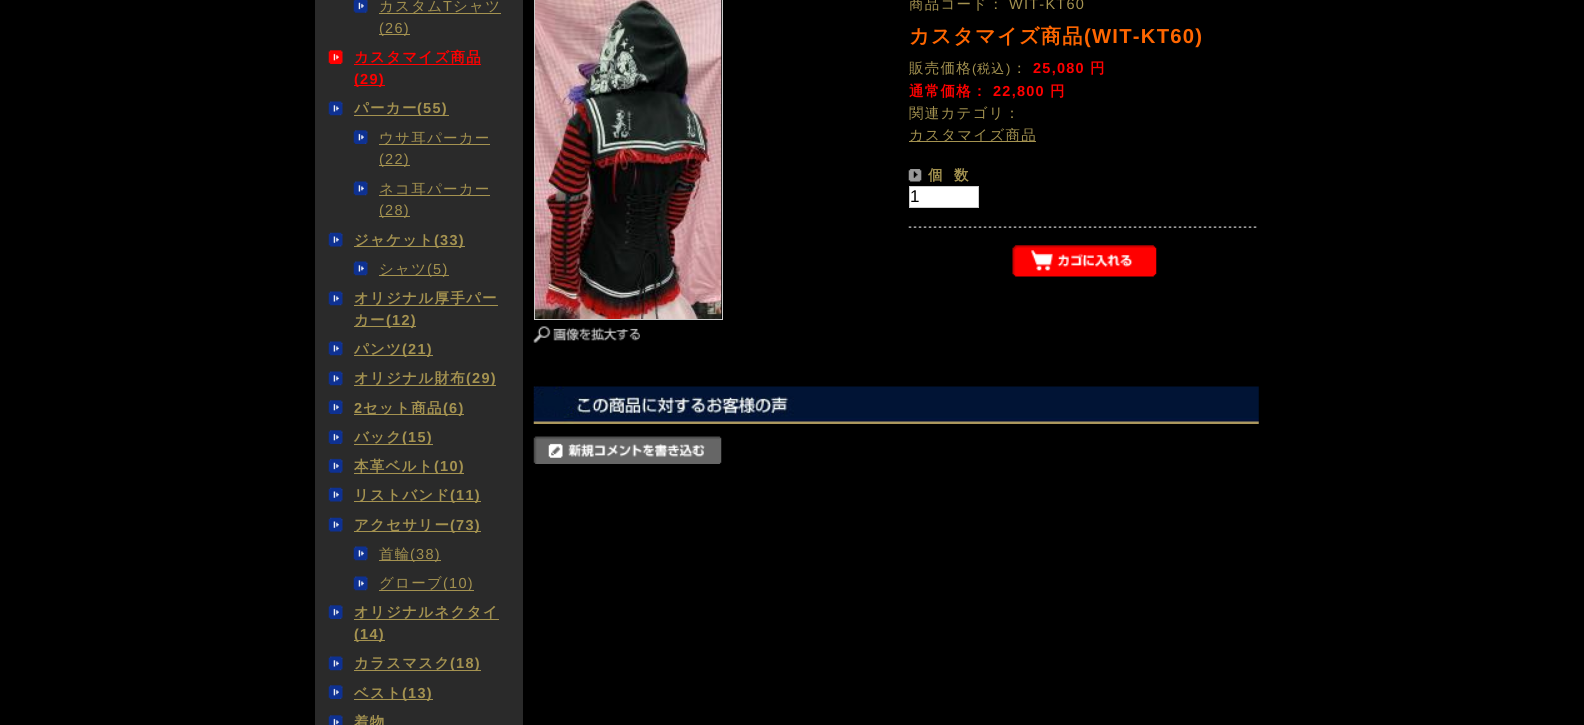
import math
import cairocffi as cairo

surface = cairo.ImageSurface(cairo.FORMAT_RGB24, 1584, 725)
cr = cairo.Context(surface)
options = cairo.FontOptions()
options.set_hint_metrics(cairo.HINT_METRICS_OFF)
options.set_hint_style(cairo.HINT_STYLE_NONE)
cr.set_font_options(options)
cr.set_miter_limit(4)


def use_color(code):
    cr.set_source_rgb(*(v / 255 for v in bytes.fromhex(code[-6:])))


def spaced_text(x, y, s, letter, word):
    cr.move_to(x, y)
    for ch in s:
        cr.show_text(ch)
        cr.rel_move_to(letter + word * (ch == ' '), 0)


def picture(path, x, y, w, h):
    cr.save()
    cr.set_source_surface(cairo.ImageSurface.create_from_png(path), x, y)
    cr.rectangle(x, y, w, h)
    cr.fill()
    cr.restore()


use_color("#000000")
cr.paint()
use_color("#2a2a2a")
cr.rectangle(315, 0, 208, 725)
cr.fill()
picture("img1.png", 353, 0, 15, 13)
use_color("#a49250")
cr.rectangle(379, 13, 122, 1)
cr.fill()
cr.select_font_face("WenQuanYi Zen Hei Medium")
cr.set_font_size(14.5)
spaced_text(379, 11, "カスタム", 1.25, 0)
cr.select_font_face("Liberation Sans")
spaced_text(443, 11, "T", 1.25, 0)
cr.select_font_face("WenQuanYi Zen Hei Medium")
spaced_text(453, 11, "シャツ", 1.25, 0)
cr.rectangle(379, 34, 31, 1)
cr.fill()
cr.select_font_face("Liberation Sans")
spaced_text(379, 33, "(26)", 1.25, 0)
picture("img2.png", 328, 50, 15, 14)
use_color("#ff0000")
cr.rectangle(354, 64, 127, 1)
cr.fill()
cr.select_font_face("WenQuanYi Zen Hei", cairo.FONT_SLANT_NORMAL, cairo.FONT_WEIGHT_BOLD)
spaced_text(354, 62, "カスタマイズ商品", 1.25, 0)
cr.rectangle(354, 85, 31, 1)
cr.fill()
cr.select_font_face("Liberation Sans", cairo.FONT_SLANT_NORMAL, cairo.FONT_WEIGHT_BOLD)
spaced_text(354, 84, "(29)", 1.25, 0)
picture("img3.png", 328, 101, 15, 15)
cr.select_font_face("WenQuanYi Zen Hei", cairo.FONT_SLANT_NORMAL, cairo.FONT_WEIGHT_BOLD)
use_color("#a49250")
spaced_text(354, 113, "パーカー", 1.25, 0)
cr.rectangle(354, 115, 95, 1)
cr.fill()
cr.select_font_face("Liberation Sans", cairo.FONT_SLANT_NORMAL, cairo.FONT_WEIGHT_BOLD)
spaced_text(417, 113, "(55)", 1.25, 0)
picture("img4.png", 353, 130, 15, 14)
cr.rectangle(379, 144, 111, 1)
cr.fill()
cr.select_font_face("WenQuanYi Zen Hei Medium")
spaced_text(379, 143, "ウサ耳パーカー", 1.25, 0)
cr.rectangle(379, 165, 31, 1)
cr.fill()
cr.select_font_face("Liberation Sans")
spaced_text(379, 164, "(22)", 1.25, 0)
picture("img5.png", 353, 181, 15, 15)
cr.rectangle(379, 195, 111, 1)
cr.fill()
cr.select_font_face("WenQuanYi Zen Hei Medium")
spaced_text(379, 194, "ネコ耳パーカー", 1.25, 0)
cr.rectangle(379, 216, 31, 1)
cr.fill()
cr.select_font_face("Liberation Sans")
spaced_text(379, 215, "(28)", 1.25, 0)
picture("img6.png", 328, 232, 15, 15)
cr.rectangle(354, 246, 111, 1)
cr.fill()
cr.select_font_face("WenQuanYi Zen Hei", cairo.FONT_SLANT_NORMAL, cairo.FONT_WEIGHT_BOLD)
spaced_text(354, 245, "ジャケット", 1.25, 0)
cr.select_font_face("Liberation Sans", cairo.FONT_SLANT_NORMAL, cairo.FONT_WEIGHT_BOLD)
spaced_text(434, 245, "(33)", 1.25, 0)
picture("img5.png", 353, 261, 15, 15)
cr.rectangle(379, 275, 70, 1)
cr.fill()
cr.select_font_face("WenQuanYi Zen Hei Medium")
spaced_text(379, 274, "シャツ", 1.25, 0)
cr.select_font_face("Liberation Sans")
spaced_text(427, 274, "(5)", 1.25, 0)
picture("img3.png", 328, 291, 15, 15)
cr.select_font_face("WenQuanYi Zen Hei", cairo.FONT_SLANT_NORMAL, cairo.FONT_WEIGHT_BOLD)
spaced_text(354, 303, "オリジナル厚手パー", 1.25, 0)
cr.rectangle(354, 305, 144, 1)
cr.fill()
cr.rectangle(354, 326, 62, 1)
cr.fill()
spaced_text(354, 325, "カー", 1.25, 0)
cr.select_font_face("Liberation Sans", cairo.FONT_SLANT_NORMAL, cairo.FONT_WEIGHT_BOLD)
spaced_text(386, 325, "(12)", 1.25, 0)
picture("img3.png", 328, 341, 15, 15)
cr.rectangle(354, 355, 79, 1)
cr.fill()
cr.select_font_face("WenQuanYi Zen Hei", cairo.FONT_SLANT_NORMAL, cairo.FONT_WEIGHT_BOLD)
spaced_text(354, 354, "パンツ", 1.25, 0)
cr.select_font_face("Liberation Sans", cairo.FONT_SLANT_NORMAL, cairo.FONT_WEIGHT_BOLD)
spaced_text(402, 354, "(21)", 1.25, 0)
picture("img3.png", 328, 371, 15, 15)
cr.rectangle(354, 385, 142, 1)
cr.fill()
cr.select_font_face("WenQuanYi Zen Hei", cairo.FONT_SLANT_NORMAL, cairo.FONT_WEIGHT_BOLD)
spaced_text(354, 383, "オリジナル財布", 1.25, 0)
cr.select_font_face("Liberation Sans", cairo.FONT_SLANT_NORMAL, cairo.FONT_WEIGHT_BOLD)
spaced_text(466, 383, "(29)", 1.25, 0)
picture("img7.png", 328, 400, 15, 14)
spaced_text(354, 413, "2", 1.25, 0)
cr.rectangle(354, 414, 110, 1)
cr.fill()
cr.select_font_face("WenQuanYi Zen Hei", cairo.FONT_SLANT_NORMAL, cairo.FONT_WEIGHT_BOLD)
spaced_text(363, 413, "セット商品", 1.25, 0)
cr.select_font_face("Liberation Sans", cairo.FONT_SLANT_NORMAL, cairo.FONT_WEIGHT_BOLD)
spaced_text(443, 413, "(6)", 1.25, 0)
picture("img7.png", 328, 430, 15, 14)
cr.select_font_face("WenQuanYi Zen Hei", cairo.FONT_SLANT_NORMAL, cairo.FONT_WEIGHT_BOLD)
spaced_text(354, 442, "バック", 1.25, 0)
cr.rectangle(354, 444, 79, 1)
cr.fill()
cr.select_font_face("Liberation Sans", cairo.FONT_SLANT_NORMAL, cairo.FONT_WEIGHT_BOLD)
spaced_text(402, 442, "(15)", 1.25, 0)
picture("img8.png", 328, 458, 15, 15)
cr.select_font_face("WenQuanYi Zen Hei", cairo.FONT_SLANT_NORMAL, cairo.FONT_WEIGHT_BOLD)
spaced_text(354, 471, "本革ベルト", 1.25, 0)
cr.rectangle(354, 473, 110, 1)
cr.fill()
cr.select_font_face("Liberation Sans", cairo.FONT_SLANT_NORMAL, cairo.FONT_WEIGHT_BOLD)
spaced_text(434, 471, "(10)", 1.25, 0)
picture("img6.png", 328, 487, 15, 15)
cr.rectangle(354, 501, 127, 1)
cr.fill()
cr.select_font_face("WenQuanYi Zen Hei", cairo.FONT_SLANT_NORMAL, cairo.FONT_WEIGHT_BOLD)
spaced_text(354, 500, "リストバンド", 1.25, 0)
cr.select_font_face("Liberation Sans", cairo.FONT_SLANT_NORMAL, cairo.FONT_WEIGHT_BOLD)
spaced_text(450, 500, "(11)", 1.25, 0)
picture("img6.png", 328, 517, 15, 15)
cr.rectangle(354, 531, 127, 1)
cr.fill()
cr.select_font_face("WenQuanYi Zen Hei", cairo.FONT_SLANT_NORMAL, cairo.FONT_WEIGHT_BOLD)
spaced_text(354, 530, "アクセサリー", 1.25, 0)
cr.select_font_face("Liberation Sans", cairo.FONT_SLANT_NORMAL, cairo.FONT_WEIGHT_BOLD)
spaced_text(450, 530, "(73)", 1.25, 0)
picture("img5.png", 353, 546, 15, 15)
cr.rectangle(379, 560, 62, 1)
cr.fill()
cr.select_font_face("WenQuanYi Zen Hei Medium")
spaced_text(379, 559, "首輪", 1.25, 0)
cr.select_font_face("Liberation Sans")
spaced_text(410, 559, "(38)", 1.25, 0)
picture("img5.png", 353, 576, 15, 15)
cr.select_font_face("WenQuanYi Zen Hei Medium")
spaced_text(379, 588, "グローブ", 1.25, 0)
cr.rectangle(379, 590, 95, 1)
cr.fill()
cr.select_font_face("Liberation Sans")
spaced_text(443, 588, "(10)", 1.25, 0)
picture("img7.png", 328, 605, 15, 14)
cr.rectangle(354, 619, 145, 1)
cr.fill()
cr.select_font_face("WenQuanYi Zen Hei", cairo.FONT_SLANT_NORMAL, cairo.FONT_WEIGHT_BOLD)
spaced_text(354, 617, "オリジナルネクタイ", 1.25, 0)
cr.rectangle(354, 640, 31, 1)
cr.fill()
cr.select_font_face("Liberation Sans", cairo.FONT_SLANT_NORMAL, cairo.FONT_WEIGHT_BOLD)
spaced_text(354, 639, "(14)", 1.25, 0)
picture("img3.png", 328, 656, 15, 15)
cr.select_font_face("WenQuanYi Zen Hei", cairo.FONT_SLANT_NORMAL, cairo.FONT_WEIGHT_BOLD)
spaced_text(354, 668, "カラスマスク", 1.25, 0)
cr.rectangle(354, 670, 127, 1)
cr.fill()
cr.select_font_face("Liberation Sans", cairo.FONT_SLANT_NORMAL, cairo.FONT_WEIGHT_BOLD)
spaced_text(450, 668, "(18)", 1.25, 0)
picture("img7.png", 328, 685, 15, 14)
cr.rectangle(354, 699, 79, 1)
cr.fill()
cr.select_font_face("WenQuanYi Zen Hei", cairo.FONT_SLANT_NORMAL, cairo.FONT_WEIGHT_BOLD)
spaced_text(354, 698, "ベスト", 1.25, 0)
cr.select_font_face("Liberation Sans", cairo.FONT_SLANT_NORMAL, cairo.FONT_WEIGHT_BOLD)
spaced_text(402, 698, "(13)", 1.25, 0)
picture("img9.png", 328, 715, 15, 10)
cr.select_font_face("WenQuanYi Zen Hei", cairo.FONT_SLANT_NORMAL, cairo.FONT_WEIGHT_BOLD)
spaced_text(354, 727, "着物", 1.25, 0)
cr.rectangle(534.5, -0.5, 188, 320)
use_color("#cccccc")
cr.set_line_width(1)
cr.stroke()
picture("img10.png", 535, 0, 187, 319)
picture("img11.png", 533, 326, 107, 17)
cr.select_font_face("WenQuanYi Zen Hei Medium")
use_color("#a49250")
spaced_text(909, 9, "商品コード：", 1.25, 0)
cr.select_font_face("Liberation Sans")
spaced_text(1009, 9, "WIT-KT60", 1.25, 0)
cr.select_font_face("WenQuanYi Zen Hei", cairo.FONT_SLANT_NORMAL, cairo.FONT_WEIGHT_BOLD)
cr.set_font_size(20.25)
use_color("#ff6600")
spaced_text(909, 43, "カスタマイズ商品", 1.25, 0)
cr.select_font_face("Liberation Sans", cairo.FONT_SLANT_NORMAL, cairo.FONT_WEIGHT_BOLD)
spaced_text(1084, 43, "(WIT-KT60)", 1.25, 0)
cr.select_font_face("WenQuanYi Zen Hei Medium")
cr.set_font_size(14.5)
use_color("#a49250")
spaced_text(909, 73, "販売価格", 1.25, 0)
cr.select_font_face("Liberation Sans")
cr.set_font_size(13)
spaced_text(972, 73, "(", 1.25, 0)
cr.select_font_face("WenQuanYi Zen Hei Medium")
spaced_text(977, 73, "税込", 1.25, 0)
cr.select_font_face("Liberation Sans")
spaced_text(1006, 73, ")", 1.25, 0)
cr.select_font_face("WenQuanYi Zen Hei Medium")
cr.set_font_size(14.5)
spaced_text(1012, 73, "：", 1.25, 0)
cr.select_font_face("Liberation Sans", cairo.FONT_SLANT_NORMAL, cairo.FONT_WEIGHT_BOLD)
use_color("#ff0000")
spaced_text(1033, 73, "25,080", 1.25, 0)
cr.select_font_face("WenQuanYi Zen Hei", cairo.FONT_SLANT_NORMAL, cairo.FONT_WEIGHT_BOLD)
spaced_text(1090, 73, "円", 1.25, 0)
spaced_text(909, 96, "通常価格：", 1.25, 0)
cr.select_font_face("Liberation Sans", cairo.FONT_SLANT_NORMAL, cairo.FONT_WEIGHT_BOLD)
spaced_text(993, 96, "22,800", 1.25, 0)
cr.select_font_face("WenQuanYi Zen Hei", cairo.FONT_SLANT_NORMAL, cairo.FONT_WEIGHT_BOLD)
spaced_text(1050, 96, "円", 1.25, 0)
cr.select_font_face("WenQuanYi Zen Hei Medium")
use_color("#a49250")
spaced_text(909, 118, "関連カテゴリ：", 1.25, 0)
cr.rectangle(909, 141, 127, 1)
cr.fill()
spaced_text(909, 140, "カスタマイズ商品", 1.25, 0)
picture("img12.png", 908, 169, 14, 13)
cr.select_font_face("WenQuanYi Zen Hei", cairo.FONT_SLANT_NORMAL, cairo.FONT_WEIGHT_BOLD)
spaced_text(928, 180, "個", 1.25, 0)
spaced_text(954, 180, "数", 1.25, 0)
use_color("#ffffff")
cr.rectangle(909.5, 186.5, 69, 21)
cr.fill_preserve()
use_color("#cccccc")
cr.stroke()
cr.select_font_face("Liberation Sans")
cr.set_font_size(17)
use_color("#000000")
cr.move_to(910, 202)
cr.show_text("1")
picture("img13.png", 908, 226, 349, 2)
picture("img14.png", 1012, 245, 145, 32)
picture("img15.png", 533, 386, 726, 38)
picture("img16.png", 533, 436, 189, 28)
surface.write_to_png("result.png")
